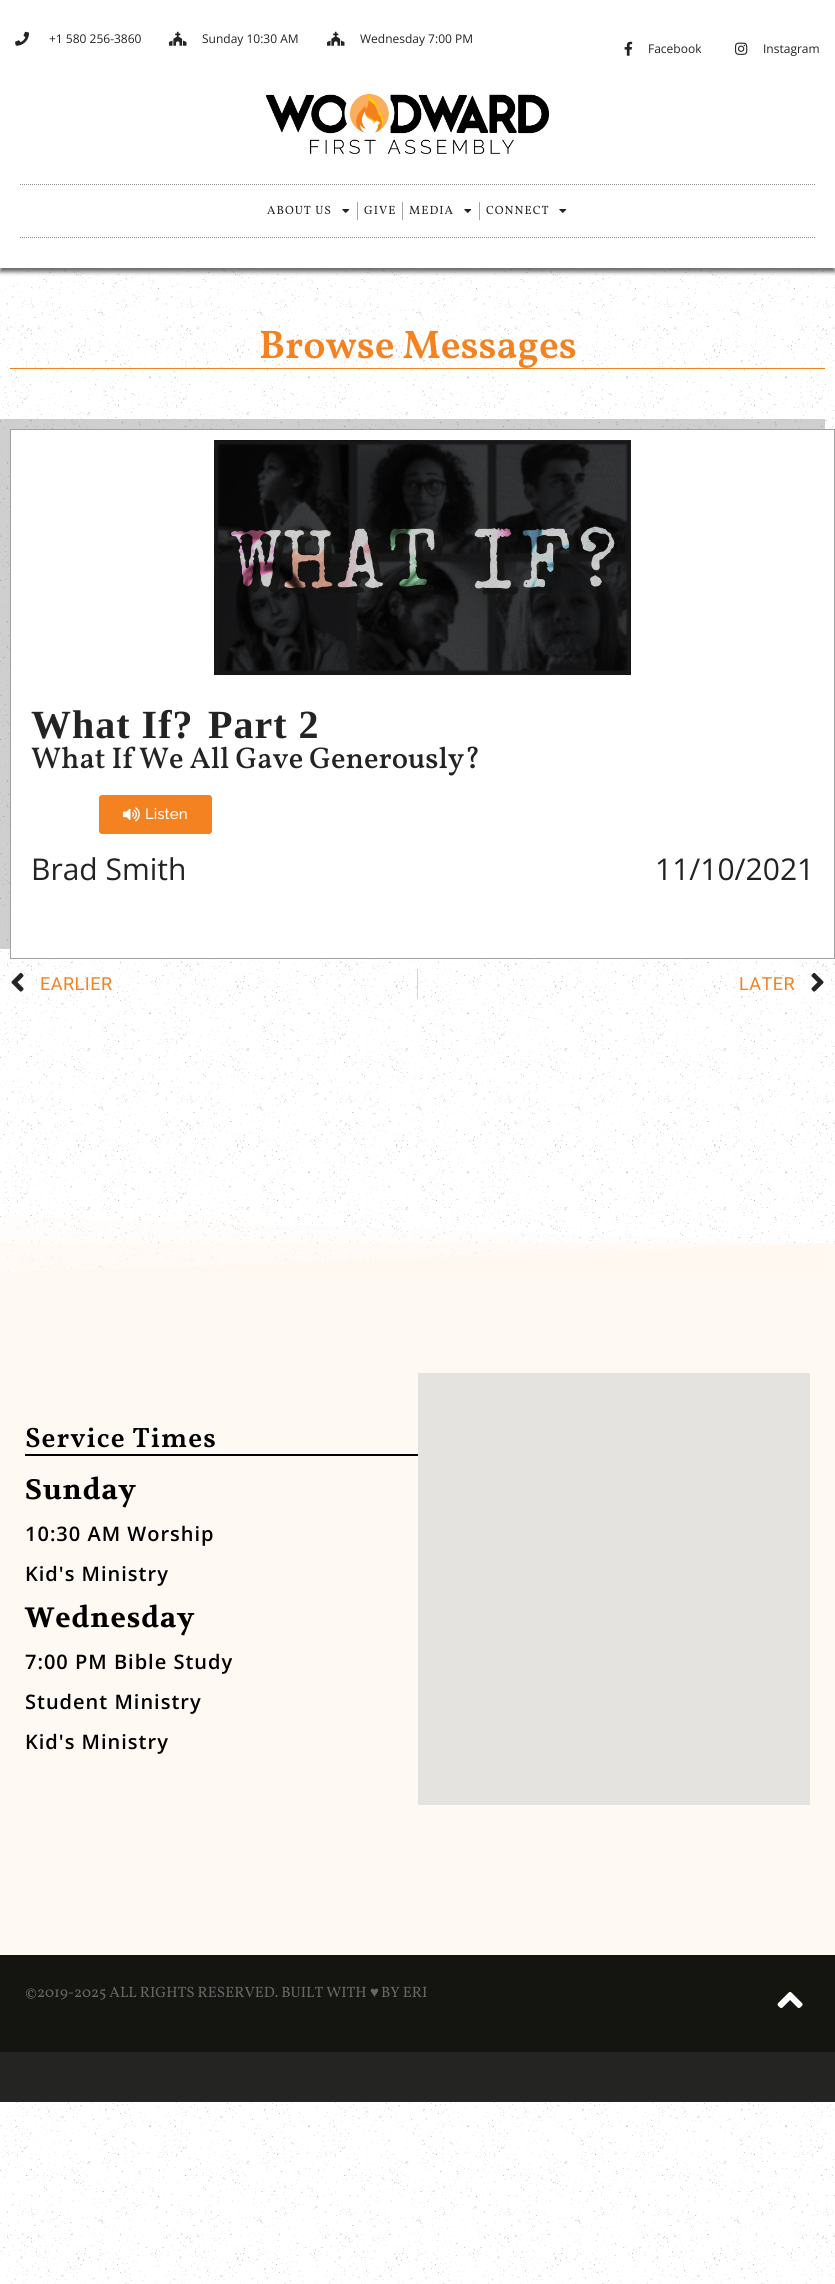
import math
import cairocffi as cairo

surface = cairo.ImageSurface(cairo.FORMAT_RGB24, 835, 2284)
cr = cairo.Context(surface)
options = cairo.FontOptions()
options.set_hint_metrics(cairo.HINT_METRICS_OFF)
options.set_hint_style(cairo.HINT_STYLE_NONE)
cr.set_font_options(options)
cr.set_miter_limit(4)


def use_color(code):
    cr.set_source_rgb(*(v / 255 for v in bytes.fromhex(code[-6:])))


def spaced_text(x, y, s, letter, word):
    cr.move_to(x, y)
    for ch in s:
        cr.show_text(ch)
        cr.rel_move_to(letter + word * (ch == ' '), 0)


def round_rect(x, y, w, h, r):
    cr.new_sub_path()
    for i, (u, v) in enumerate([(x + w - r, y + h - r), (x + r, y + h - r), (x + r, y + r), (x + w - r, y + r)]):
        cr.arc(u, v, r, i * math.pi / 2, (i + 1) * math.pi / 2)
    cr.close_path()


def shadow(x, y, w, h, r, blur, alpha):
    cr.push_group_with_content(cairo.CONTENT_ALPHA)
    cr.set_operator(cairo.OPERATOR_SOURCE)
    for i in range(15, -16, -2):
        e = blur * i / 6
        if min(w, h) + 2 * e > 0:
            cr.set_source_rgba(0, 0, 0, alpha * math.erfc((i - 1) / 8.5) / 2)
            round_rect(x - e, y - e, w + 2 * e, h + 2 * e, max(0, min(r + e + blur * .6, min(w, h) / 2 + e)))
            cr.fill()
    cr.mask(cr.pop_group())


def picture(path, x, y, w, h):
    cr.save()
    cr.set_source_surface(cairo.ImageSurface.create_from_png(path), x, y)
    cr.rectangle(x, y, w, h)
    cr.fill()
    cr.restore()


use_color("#ffffff")
cr.paint()
picture("img1.png", 0, 268, 835, 2016)
picture("img2.png", 15, 31, 14, 15)
cr.select_font_face("Open Sans")
cr.set_font_size(12)
use_color("#232323")
cr.move_to(49, 43)
cr.show_text("+1 580 256-3860")
picture("img3.png", 169, 31, 18, 15)
cr.move_to(202, 43)
cr.show_text("Sunday 10:30 AM")
picture("img3.png", 327, 31, 18, 15)
cr.move_to(360, 43)
cr.show_text("Wednesday 7:00 PM")
picture("img4.png", 624, 41, 9, 15)
cr.move_to(648, 53)
cr.show_text("Facebook")
picture("img5.png", 735, 42, 13, 13)
cr.move_to(763, 53)
cr.show_text("Instagram")
picture("img6.png", 266, 93, 283, 61)
cr.new_path()
cr.move_to(20, 184.5)
cr.line_to(815, 184.5)
use_color("#8e8e8e")
cr.set_line_width(1)
cr.set_dash([1, 1])
cr.stroke()
cr.new_path()
cr.move_to(20, 237.5)
cr.line_to(815, 237.5)
cr.stroke()
cr.select_font_face("Vollkorn")
use_color("#232323")
spaced_text(267, 214, "ABOUT US", 1, 0)
picture("img7.png", 342, 209, 8, 4)
use_color("#a6a6a6")
cr.rectangle(357, 202, 1, 18)
cr.fill()
use_color("#232323")
spaced_text(364, 214, "GIVE", 1, 0)
use_color("#a6a6a6")
cr.rectangle(402, 202, 1, 18)
cr.fill()
use_color("#232323")
spaced_text(409, 214, "MEDIA", 1, 0)
picture("img7.png", 464, 209, 8, 4)
use_color("#a6a6a6")
cr.rectangle(479, 202, 1, 18)
cr.fill()
use_color("#232323")
spaced_text(486, 214, "CONNECT", 1, 0)
picture("img7.png", 559, 209, 8, 4)
cr.save()
cr.rectangle(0, 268, 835, 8)
cr.clip()
use_color("#000000")
shadow(0, 262, 835, 10, 0, 2, 0.58)
cr.restore()
use_color("#f58220")
cr.rectangle(10, 368, 815, 1)
cr.fill()
cr.select_font_face("Vollkorn SemiBold")
cr.set_font_size(40)
cr.move_to(259, 358)
cr.show_text("Browse Messages")
cr.set_source_rgba(0.067, 0.067, 0.067, 0.2)
cr.new_path()
cr.move_to(0, 419)
cr.line_to(0, 949)
cr.line_to(10, 949)
cr.line_to(10, 429)
cr.line_to(825, 429)
cr.line_to(825, 419)
cr.close_path()
cr.fill()
use_color("#ffffff")
cr.rectangle(11, 430, 823, 527)
cr.fill()
cr.rectangle(10.5, 429.5, 824, 529)
use_color("#a0a0a0")
cr.set_dash([])
cr.stroke()
picture("img8.png", 214, 440, 417, 235)
cr.select_font_face("Liberation Serif", cairo.FONT_SLANT_NORMAL, cairo.FONT_WEIGHT_BOLD)
use_color("#232323")
spaced_text(31, 738, "What If?", 1, 0)
spaced_text(208, 738, "Part 2", 1, 0)
cr.select_font_face("Vollkorn Medium")
cr.set_font_size(30)
cr.move_to(31, 768)
cr.show_text("What If We All Gave Generously?")
use_color("#f58220")
round_rect(99, 795, 113, 39, 3)
cr.fill()
picture("img9.png", 123, 807, 17, 15)
cr.select_font_face("Raleway Medium")
cr.set_font_size(15)
use_color("#ffffff")
cr.move_to(145, 819)
cr.show_text("Listen")
cr.select_font_face("Open Sans")
cr.set_font_size(30)
use_color("#232323")
cr.move_to(31, 880)
cr.show_text("Brad Smith")
cr.move_to(655, 880)
cr.show_text("11/10/2021")
picture("img10.png", 11, 972, 13, 20)
cr.select_font_face("Roboto")
cr.set_font_size(18)
use_color("#f58220")
spaced_text(40, 990, "EARLIER", 0.5, 0)
use_color("#d5d8dc")
cr.rectangle(417, 969, 1, 30)
cr.fill()
use_color("#f58220")
spaced_text(739, 990, "LATER", 0.5, 0)
picture("img11.png", 811, 972, 13, 20)
use_color("#fff9f3")
cr.new_path()
cr.move_to(0, 1273)
cr.line_to(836, 1273)
cr.line_to(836, 1243)
cr.close_path()
cr.fill()
cr.set_source_rgba(1, 0.976, 0.953, 0.5)
cr.rectangle(0, 1243, 824, 30)
cr.fill()
cr.set_source_rgba(1, 0.976, 0.953, 0.25)
cr.new_path()
cr.move_to(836, 1273)
cr.line_to(0, 1273)
cr.line_to(0, 1216)
cr.line_to(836, 1243)
cr.close_path()
cr.fill()
use_color("#fff9f3")
cr.rectangle(0, 1273, 835, 682)
cr.fill()
use_color("#000000")
cr.rectangle(25, 1454, 393, 2)
cr.fill()
cr.select_font_face("Vollkorn SemiBold")
cr.set_font_size(28)
spaced_text(25, 1447, "Service Times", 1, 0)
cr.select_font_face("Volkhov", cairo.FONT_SLANT_NORMAL, cairo.FONT_WEIGHT_BOLD)
spaced_text(25, 1499, "Sunday", 1, 0)
cr.select_font_face("Open Sans SemiBold")
cr.set_font_size(20)
spaced_text(25, 1541, "10:30 AM Worship", 1, 0)
spaced_text(25, 1581, "Kid's Ministry", 1, 0)
cr.select_font_face("Volkhov", cairo.FONT_SLANT_NORMAL, cairo.FONT_WEIGHT_BOLD)
cr.set_font_size(28)
spaced_text(25, 1627, "Wednesday", 1, 0)
cr.select_font_face("Open Sans SemiBold")
cr.set_font_size(20)
spaced_text(25, 1669, "7:00 PM Bible Study", 1, 0)
spaced_text(25, 1709, "Student Ministry", 1, 0)
spaced_text(25, 1749, "Kid's Ministry", 1, 0)
use_color("#e5e3e0")
cr.rectangle(418, 1373, 392, 432)
cr.fill()
use_color("#141411")
cr.rectangle(0, 1955, 835, 97)
cr.fill()
cr.select_font_face("Vollkorn")
cr.set_font_size(15)
use_color("#686868")
cr.move_to(25, 1997)
cr.show_text("©2019-2025 ALL RIGHTS RESERVED. BUILT WITH")
cr.select_font_face("Liberation Sans")
cr.move_to(370, 1997)
cr.show_text("♥")
cr.select_font_face("Vollkorn")
cr.move_to(381, 1997)
cr.show_text("BY ERI")
picture("img12.png", 777, 1992, 26, 16)
use_color("#242422")
cr.rectangle(0, 2052, 835, 50)
cr.fill()
surface.write_to_png("result.png")
